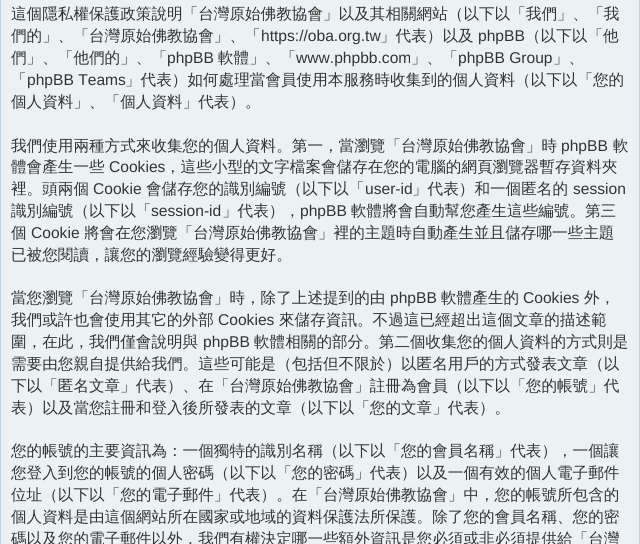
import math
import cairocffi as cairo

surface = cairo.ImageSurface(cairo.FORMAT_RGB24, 640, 544)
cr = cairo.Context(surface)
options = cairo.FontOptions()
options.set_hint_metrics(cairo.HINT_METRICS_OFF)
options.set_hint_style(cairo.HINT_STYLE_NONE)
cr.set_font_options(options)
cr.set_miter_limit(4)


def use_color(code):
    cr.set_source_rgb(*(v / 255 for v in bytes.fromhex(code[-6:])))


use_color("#ecf1f3")
cr.paint()
cr.rectangle(0.5, -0.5, 639, 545)
use_color("#bcd4e3")
cr.set_line_width(1)
cr.stroke()
cr.select_font_face("WenQuanYi Zen Hei Medium")
cr.set_font_size(15.6)
use_color("#333333")
cr.move_to(11, 19)
cr.show_text("這個隱私權保護政策說明「台灣原始佛教協會」以及其相關網站（以下以「我們」、「我")
cr.move_to(11, 41)
cr.show_text("們的」、「台灣原始佛教協會」、「")
cr.select_font_face("Liberation Sans")
cr.move_to(261, 41)
cr.show_text("https://oba.org.tw")
cr.select_font_face("WenQuanYi Zen Hei Medium")
cr.move_to(380, 41)
cr.show_text("」代表）以及")
cr.select_font_face("Liberation Sans")
cr.move_to(478, 41)
cr.show_text("phpBB")
cr.select_font_face("WenQuanYi Zen Hei Medium")
cr.move_to(525, 41)
cr.show_text("（以下以「他")
cr.move_to(11, 63)
cr.show_text("們」、「他們的」、「")
cr.select_font_face("Liberation Sans")
cr.move_to(167, 63)
cr.show_text("phpBB")
cr.select_font_face("WenQuanYi Zen Hei Medium")
cr.move_to(218, 63)
cr.show_text("軟體」、「")
cr.select_font_face("Liberation Sans")
cr.move_to(296, 63)
cr.show_text("www.phpbb.com")
cr.select_font_face("WenQuanYi Zen Hei Medium")
cr.move_to(411, 63)
cr.show_text("」、「")
cr.select_font_face("Liberation Sans")
cr.move_to(458, 63)
cr.show_text("phpBB Group")
cr.select_font_face("WenQuanYi Zen Hei Medium")
cr.move_to(553, 63)
cr.show_text("」、")
cr.move_to(11, 85)
cr.show_text("「")
cr.select_font_face("Liberation Sans")
cr.move_to(27, 85)
cr.show_text("phpBB Teams")
cr.select_font_face("WenQuanYi Zen Hei Medium")
cr.move_to(125, 85)
cr.show_text("」代表）如何處理當會員使用本服務時收集到的個人資料（以下以「您的")
cr.move_to(11, 107)
cr.show_text("個人資料」、「個人資料」代表）。")
cr.move_to(11, 151)
cr.show_text("我們使用兩種方式來收集您的個人資料。第一，當瀏覽「台灣原始佛教協會」時")
cr.select_font_face("Liberation Sans")
cr.move_to(561, 151)
cr.show_text("phpBB")
cr.select_font_face("WenQuanYi Zen Hei Medium")
cr.move_to(613, 151)
cr.show_text("軟")
cr.move_to(11, 172)
cr.show_text("體會產生一些")
cr.select_font_face("Liberation Sans")
cr.move_to(109, 172)
cr.show_text("Cookies")
cr.select_font_face("WenQuanYi Zen Hei Medium")
cr.move_to(165, 172)
cr.show_text("，這些小型的文字檔案會儲存在您的電腦的網頁瀏覽器暫存資料夾")
cr.move_to(11, 194)
cr.show_text("裡。頭兩個")
cr.select_font_face("Liberation Sans")
cr.move_to(93, 194)
cr.show_text("Cookie")
cr.select_font_face("WenQuanYi Zen Hei Medium")
cr.move_to(146, 194)
cr.show_text("會儲存您的識別編號（以下以「")
cr.select_font_face("Liberation Sans")
cr.move_to(365, 194)
cr.show_text("user-id")
cr.select_font_face("WenQuanYi Zen Hei Medium")
cr.move_to(412, 194)
cr.show_text("」代表）和一個匿名的")
cr.select_font_face("Liberation Sans")
cr.move_to(573, 194)
cr.show_text("session")
cr.select_font_face("WenQuanYi Zen Hei Medium")
cr.move_to(11, 216)
cr.show_text("識別編號（以下以「")
cr.select_font_face("Liberation Sans")
cr.move_to(151, 216)
cr.show_text("session-id")
cr.select_font_face("WenQuanYi Zen Hei Medium")
cr.move_to(222, 216)
cr.show_text("」代表），")
cr.select_font_face("Liberation Sans")
cr.move_to(300, 216)
cr.show_text("phpBB")
cr.select_font_face("WenQuanYi Zen Hei Medium")
cr.move_to(351, 216)
cr.show_text("軟體將會自動幫您產生這些編號。第三")
cr.move_to(11, 238)
cr.show_text("個")
cr.select_font_face("Liberation Sans")
cr.move_to(31, 238)
cr.show_text("Cookie")
cr.select_font_face("WenQuanYi Zen Hei Medium")
cr.move_to(84, 238)
cr.show_text("將會在您瀏覽「台灣原始佛教協會」裡的主題時自動產生並且儲存哪一些主題")
cr.move_to(11, 260)
cr.show_text("已被您閱讀，讓您的瀏覽經驗變得更好。")
cr.move_to(11, 303)
cr.show_text("當您瀏覽「台灣原始佛教協會」時，除了上述提到的由")
cr.select_font_face("Liberation Sans")
cr.move_to(390, 303)
cr.show_text("phpBB")
cr.select_font_face("WenQuanYi Zen Hei Medium")
cr.move_to(441, 303)
cr.show_text("軟體產生的")
cr.select_font_face("Liberation Sans")
cr.move_to(523, 303)
cr.show_text("Cookies")
cr.select_font_face("WenQuanYi Zen Hei Medium")
cr.move_to(584, 303)
cr.show_text("外，")
cr.move_to(11, 325)
cr.show_text("我們或許也會使用其它的外部")
cr.select_font_face("Liberation Sans")
cr.move_to(218, 325)
cr.show_text("Cookies")
cr.select_font_face("WenQuanYi Zen Hei Medium")
cr.move_to(279, 325)
cr.show_text("來儲存資訊。不過這已經超出這個文章的描述範")
cr.move_to(11, 347)
cr.show_text("圍，在此，我們僅會說明與")
cr.select_font_face("Liberation Sans")
cr.move_to(203, 347)
cr.show_text("phpBB")
cr.select_font_face("WenQuanYi Zen Hei Medium")
cr.move_to(254, 347)
cr.show_text("軟體相關的部分。第二個收集您的個人資料的方式則是")
cr.move_to(11, 369)
cr.show_text("需要由您親自提供給我們。這些可能是（包括但不限於）以匿名用戶的方式發表文章（以")
cr.move_to(11, 391)
cr.show_text("下以「匿名文章」代表）、在「台灣原始佛教協會」註冊為會員（以下以「您的帳號」代")
cr.move_to(11, 413)
cr.show_text("表）以及當您註冊和登入後所發表的文章（以下以「您的文章」代表）。")
cr.move_to(11, 456)
cr.show_text("您的帳號的主要資訊為：一個獨特的識別名稱（以下以「您的會員名稱」代表），一個讓")
cr.move_to(11, 478)
cr.show_text("您登入到您的帳號的個人密碼（以下以「您的密碼」代表）以及一個有效的個人電子郵件")
cr.move_to(11, 500)
cr.show_text("位址（以下以「您的電子郵件」代表）。在「台灣原始佛教協會」中，您的帳號所包含的")
cr.move_to(11, 522)
cr.show_text("個人資料是由這個網站所在國家或地域的資料保護法所保護。除了您的會員名稱、您的密")
cr.move_to(11, 544)
cr.show_text("碼以及您的電子郵件以外，我們有權決定哪一些額外資訊是您必須或非必須提供給「台灣")
surface.write_to_png("result.png")
